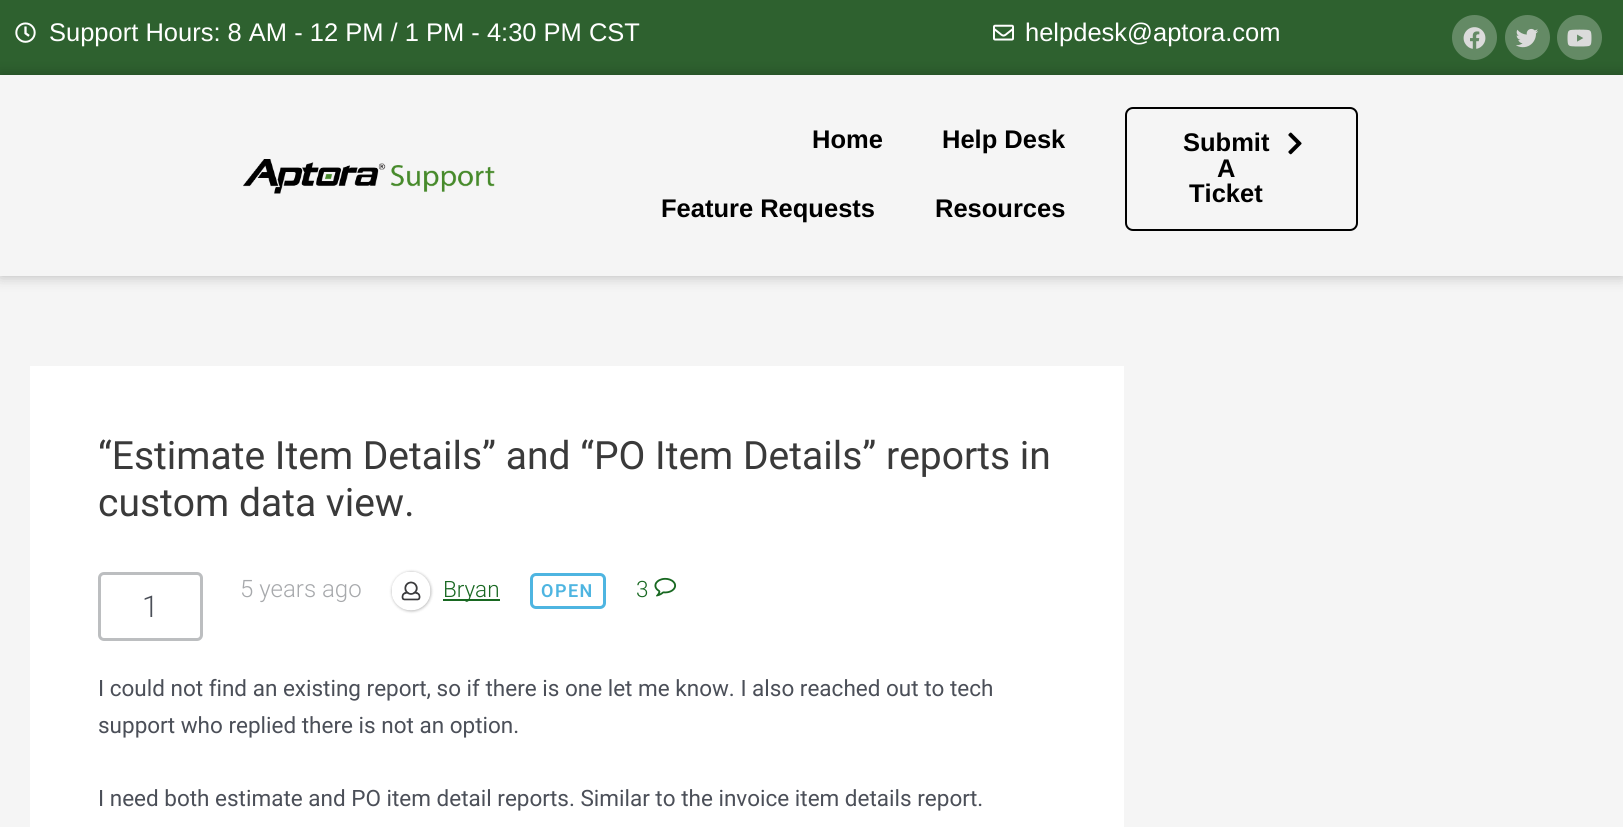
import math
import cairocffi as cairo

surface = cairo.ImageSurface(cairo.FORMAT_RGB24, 1623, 827)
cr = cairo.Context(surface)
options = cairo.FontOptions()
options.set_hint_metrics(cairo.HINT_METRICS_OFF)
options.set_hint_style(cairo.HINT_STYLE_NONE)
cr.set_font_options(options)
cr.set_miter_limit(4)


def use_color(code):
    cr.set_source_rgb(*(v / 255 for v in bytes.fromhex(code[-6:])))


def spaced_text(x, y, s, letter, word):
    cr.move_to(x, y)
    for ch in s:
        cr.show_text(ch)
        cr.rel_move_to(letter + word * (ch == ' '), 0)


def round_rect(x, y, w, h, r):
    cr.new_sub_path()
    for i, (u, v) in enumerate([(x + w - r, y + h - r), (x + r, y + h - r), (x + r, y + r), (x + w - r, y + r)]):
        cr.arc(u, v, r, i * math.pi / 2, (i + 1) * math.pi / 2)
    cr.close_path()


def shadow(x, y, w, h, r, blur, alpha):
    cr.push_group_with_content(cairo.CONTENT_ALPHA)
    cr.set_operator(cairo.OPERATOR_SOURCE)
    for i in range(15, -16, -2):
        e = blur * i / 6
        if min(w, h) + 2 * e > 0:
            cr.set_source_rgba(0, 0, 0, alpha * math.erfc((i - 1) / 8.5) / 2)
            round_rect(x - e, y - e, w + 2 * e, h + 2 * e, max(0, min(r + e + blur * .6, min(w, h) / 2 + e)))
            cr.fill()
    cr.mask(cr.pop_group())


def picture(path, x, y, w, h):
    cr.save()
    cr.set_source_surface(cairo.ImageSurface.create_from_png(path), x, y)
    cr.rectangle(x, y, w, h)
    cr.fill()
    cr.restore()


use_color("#f5f5f5")
cr.paint()
use_color("#2e612f")
cr.rectangle(0, 0, 1623, 75)
cr.fill()
picture("img1.png", 15, 22, 21, 21)
cr.select_font_face("Liberation Sans")
cr.set_font_size(25.5)
use_color("#ffffff")
cr.move_to(49, 41)
cr.show_text("Support Hours: 8 AM - 12 PM / 1 PM - 4:30 PM CST")
picture("img2.png", 993, 24, 21, 17)
cr.move_to(1025, 41)
cr.show_text("helpdesk@aptora.com")
use_color("#648a65")
cr.new_path()
cr.arc(1474.5, 37.5, 22.5, 0, 2 * math.pi)
cr.fill()
picture("img3.png", 1463, 27, 23, 22)
cr.arc(1527.5, 37.5, 22.5, 0, 2 * math.pi)
cr.fill()
picture("img4.png", 1516, 28, 22, 20)
cr.arc(1579.5, 37.5, 22.5, 0, 2 * math.pi)
cr.fill()
picture("img5.png", 1567, 29, 25, 18)
cr.save()
cr.set_fill_rule(cairo.FILL_RULE_EVEN_ODD)
cr.new_path()
cr.move_to(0, 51)
cr.line_to(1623, 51)
cr.line_to(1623, 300)
cr.line_to(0, 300)
cr.close_path()
cr.move_to(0, 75)
cr.line_to(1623, 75)
cr.line_to(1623, 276)
cr.line_to(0, 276)
cr.close_path()
cr.clip()
use_color("#000000")
shadow(0, 75, 1623, 201, 0, 7.5, 0.25)
cr.restore()
picture("img6.png", 243, 159, 252, 35)
cr.select_font_face("Liberation Sans", cairo.FONT_SLANT_NORMAL, cairo.FONT_WEIGHT_BOLD)
use_color("#000000")
cr.move_to(812, 148)
cr.show_text("Home")
cr.move_to(942, 148)
cr.show_text("Help Desk")
cr.move_to(661, 217)
cr.show_text("Feature Requests")
cr.move_to(935, 217)
cr.show_text("Resources")
round_rect(1126, 108, 231, 122, 7)
cr.stroke()
cr.move_to(1183, 151)
cr.show_text("Submit")
cr.move_to(1217, 177)
cr.show_text("A")
cr.move_to(1189, 202)
cr.show_text("Ticket")
picture("img7.png", 1288, 132, 14, 23)
use_color("#ffffff")
cr.rectangle(30, 366, 1094, 461)
cr.fill()
cr.select_font_face("Roboto")
cr.set_font_size(39)
use_color("#3a3a3a")
cr.move_to(98, 469)
cr.show_text("“Estimate Item Details” and “PO Item Details” reports in")
cr.move_to(98, 516)
cr.show_text("custom data view.")
cr.select_font_face("Roboto Light")
cr.set_font_size(24)
use_color("#a7a9ac")
cr.move_to(240, 597)
cr.show_text("5 years ago")
use_color("#000000")
shadow(392, 572, 39, 39, 19.5, 1.5, 0.3)
picture("img8.png", 392, 572, 39, 39)
use_color("#186821")
cr.rectangle(443, 599, 57, 2)
cr.fill()
cr.set_font_size(22.5)
cr.move_to(443, 597)
cr.show_text("Bryan")
round_rect(531.5, 574.5, 73, 33, 4.5)
use_color("#4eb5e1")
cr.set_line_width(3)
cr.stroke()
cr.select_font_face("Roboto SemiBold")
cr.set_font_size(18)
spaced_text(541, 597, "OPEN", 1.5, 0)
cr.select_font_face("Roboto Light")
cr.set_font_size(22.5)
use_color("#186821")
cr.move_to(636, 597)
cr.show_text("3")
picture("img9.png", 654, 577, 23, 20)
round_rect(99.5, 573.5, 102, 66, 4.5)
use_color("#bcbec0")
cr.stroke()
cr.set_font_size(30)
use_color("#4b4f58")
cr.move_to(142, 617)
cr.show_text("1")
cr.select_font_face("Roboto")
cr.set_font_size(22.5)
cr.move_to(98, 696)
cr.show_text("I could not find an existing report, so if there is one let me know. I also reached out to tech")
cr.move_to(98, 733)
cr.show_text("support who replied there is not an option.")
cr.move_to(98, 806)
cr.show_text("I need both estimate and PO item detail reports. Similar to the invoice item details report.")
surface.write_to_png("result.png")
